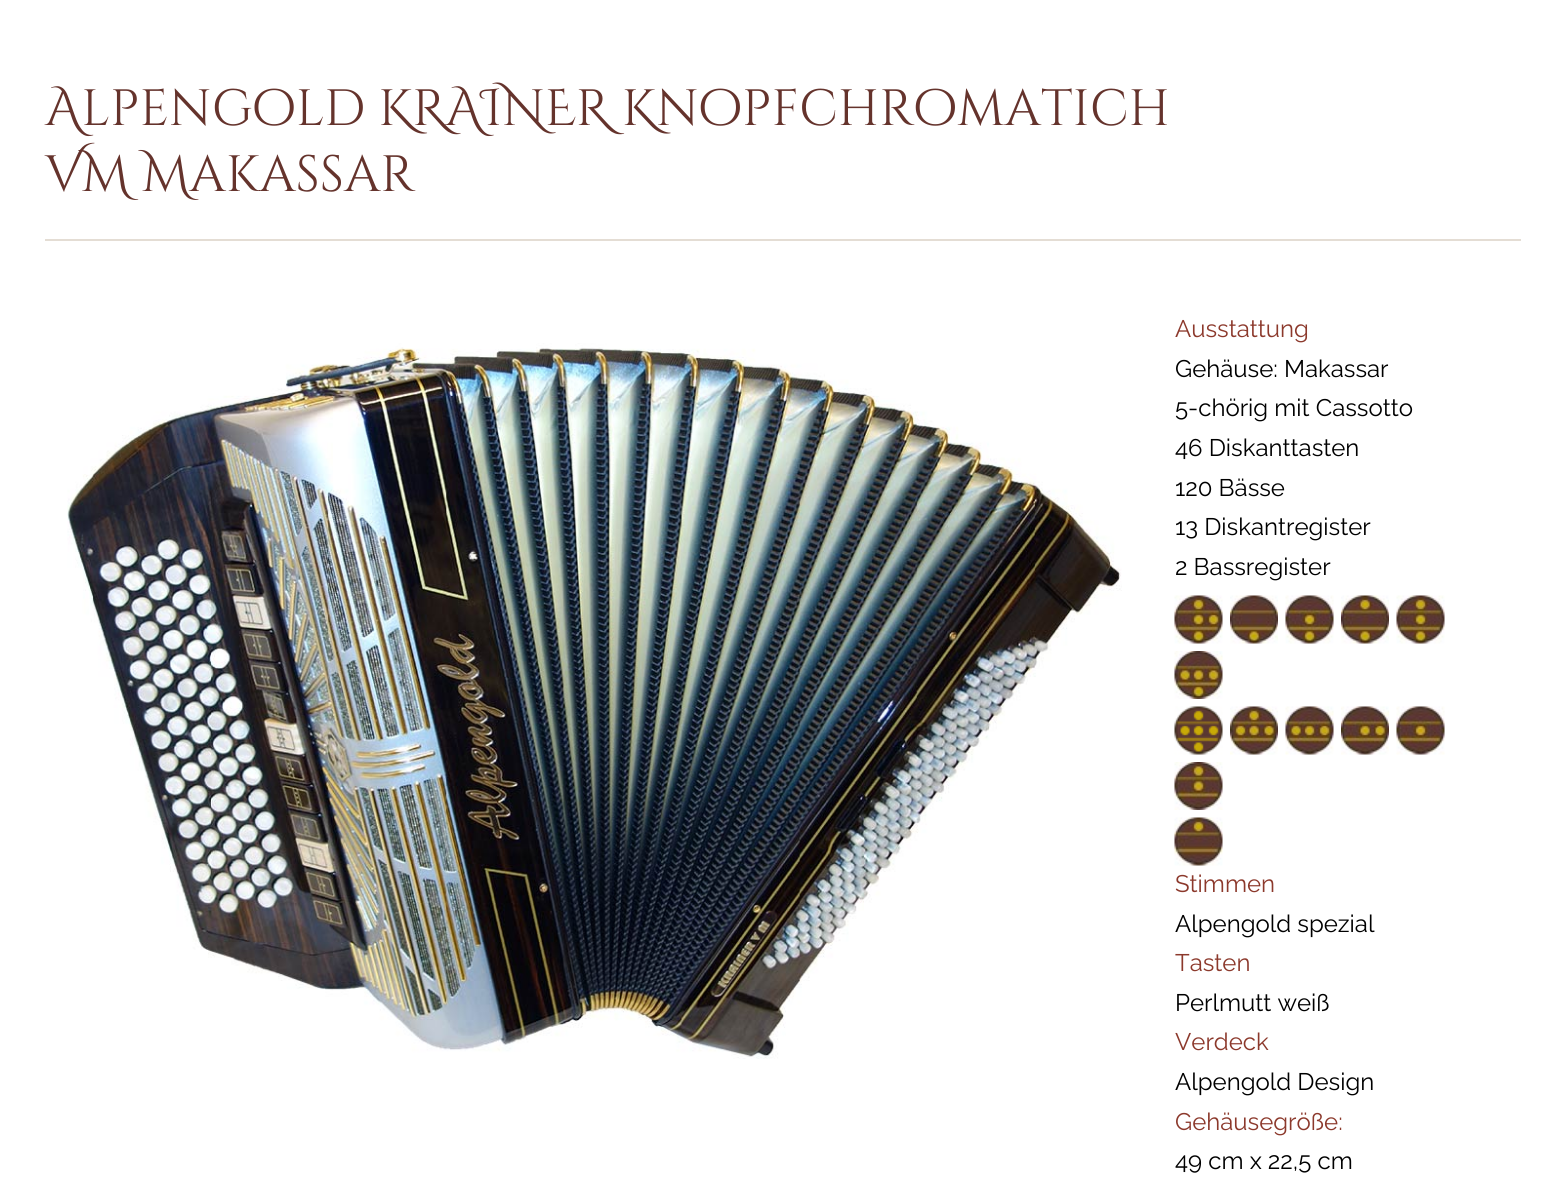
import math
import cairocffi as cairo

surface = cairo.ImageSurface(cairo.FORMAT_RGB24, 1566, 1193)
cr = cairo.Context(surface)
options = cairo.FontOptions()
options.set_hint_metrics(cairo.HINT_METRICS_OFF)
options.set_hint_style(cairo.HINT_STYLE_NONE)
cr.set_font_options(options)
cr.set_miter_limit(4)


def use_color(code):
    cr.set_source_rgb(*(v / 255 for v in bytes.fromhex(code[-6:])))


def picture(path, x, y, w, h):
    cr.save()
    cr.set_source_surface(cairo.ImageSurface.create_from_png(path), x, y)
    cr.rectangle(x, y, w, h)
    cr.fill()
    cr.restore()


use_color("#ffffff")
cr.paint()
cr.select_font_face("Cinzel Decorative")
cr.set_font_size(51)
use_color("#65332c")
cr.move_to(45, 125)
cr.show_text("Alpengold KRAINER Knopfchromatich")
cr.move_to(45, 191)
cr.show_text("VM Makassar")
use_color("#e4ddd4")
cr.rectangle(45, 239, 1476, 2)
cr.fill()
picture("img1.png", 67, 343, 1055, 716)
cr.select_font_face("Raleway")
cr.set_font_size(24)
use_color("#8c392c")
cr.move_to(1175, 337)
cr.show_text("Ausstattung")
use_color("#000000")
cr.move_to(1175, 377)
cr.show_text("Gehäuse: Makassar")
cr.move_to(1175, 416)
cr.show_text("5-chörig mit Cassotto")
cr.move_to(1175, 456)
cr.show_text("46 Diskanttasten")
cr.move_to(1175, 496)
cr.show_text("120 Bässe")
cr.move_to(1175, 535)
cr.show_text("13 Diskantregister")
cr.move_to(1175, 575)
cr.show_text("2 Bassregister")
picture("img2.png", 1174, 595, 49, 49)
picture("img3.png", 1230, 595, 48, 49)
picture("img4.png", 1285, 595, 49, 49)
picture("img5.png", 1341, 595, 48, 49)
picture("img6.png", 1396, 595, 49, 49)
picture("img7.png", 1174, 651, 49, 48)
picture("img8.png", 1174, 706, 49, 49)
picture("img9.png", 1230, 706, 48, 49)
picture("img10.png", 1285, 706, 49, 49)
picture("img11.png", 1341, 706, 48, 49)
picture("img12.png", 1396, 706, 49, 49)
picture("img13.png", 1174, 762, 49, 48)
picture("img14.png", 1174, 817, 49, 49)
use_color("#8c392c")
cr.move_to(1175, 892)
cr.show_text("Stimmen")
use_color("#000000")
cr.move_to(1175, 932)
cr.show_text("Alpengold spezial")
use_color("#8c392c")
cr.move_to(1175, 971)
cr.show_text("Tasten")
use_color("#000000")
cr.move_to(1175, 1011)
cr.show_text("Perlmutt weiß")
use_color("#8c392c")
cr.move_to(1175, 1050)
cr.show_text("Verdeck")
use_color("#000000")
cr.move_to(1175, 1090)
cr.show_text("Alpengold Design")
use_color("#8c392c")
cr.move_to(1175, 1130)
cr.show_text("Gehäusegröße:")
use_color("#000000")
cr.move_to(1175, 1169)
cr.show_text("49 cm x 22,5 cm")
surface.write_to_png("result.png")
